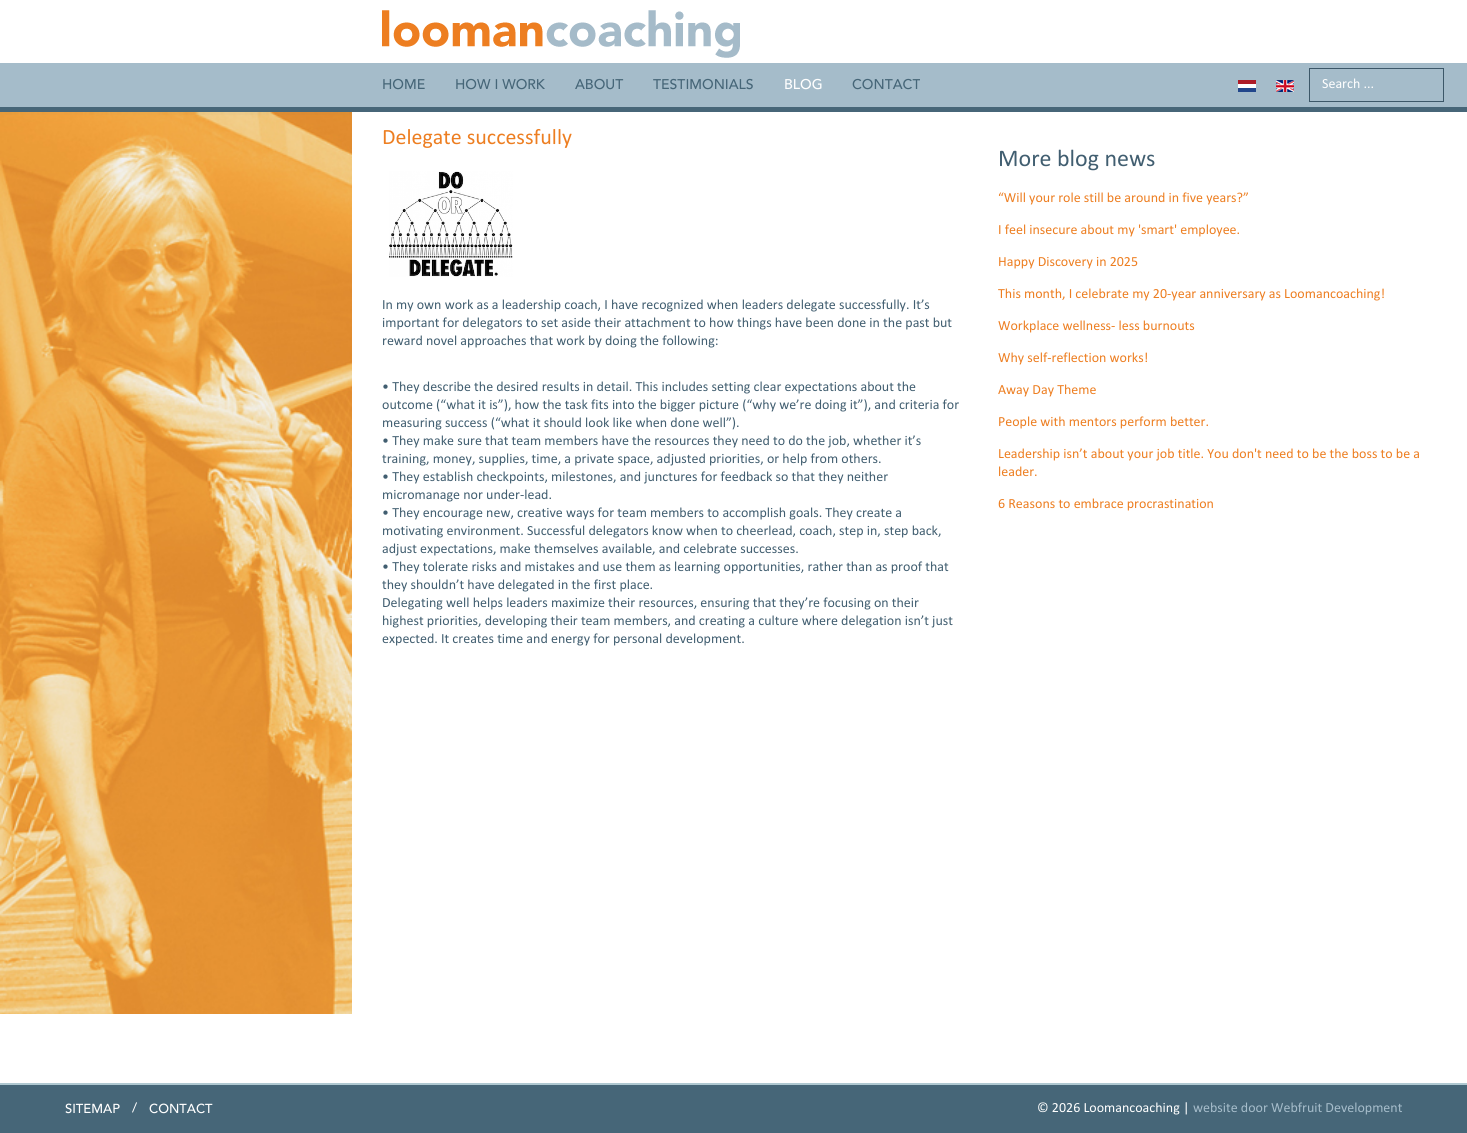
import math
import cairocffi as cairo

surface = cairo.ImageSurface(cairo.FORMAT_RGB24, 1467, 1133)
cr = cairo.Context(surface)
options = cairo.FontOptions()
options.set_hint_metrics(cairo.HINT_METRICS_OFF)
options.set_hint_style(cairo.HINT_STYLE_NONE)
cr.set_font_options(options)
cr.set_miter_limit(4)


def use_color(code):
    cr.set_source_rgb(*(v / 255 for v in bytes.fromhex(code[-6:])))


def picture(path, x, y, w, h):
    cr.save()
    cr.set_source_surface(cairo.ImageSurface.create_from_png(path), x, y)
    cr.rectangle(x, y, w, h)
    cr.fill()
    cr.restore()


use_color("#ffffff")
cr.paint()
picture("img1.png", 382, 10, 358, 48)
use_color("#a5bcca")
cr.rectangle(0, 63, 1467, 44)
cr.fill()
use_color("#476678")
cr.rectangle(0, 107, 1467, 5)
cr.fill()
cr.select_font_face("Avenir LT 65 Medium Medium")
cr.set_font_size(14)
use_color("#466678")
cr.move_to(382, 89)
cr.show_text("HOME")
cr.move_to(455, 89)
cr.show_text("HOW I WORK")
cr.move_to(575, 89)
cr.show_text("ABOUT")
cr.move_to(653, 89)
cr.show_text("TESTIMONIALS")
use_color("#ffffff")
cr.move_to(784, 89)
cr.show_text("BLOG")
use_color("#466678")
cr.move_to(852, 89)
cr.show_text("CONTACT")
picture("img2.png", 1238, 80, 18, 12)
picture("img3.png", 1276, 80, 18, 12)
cr.rectangle(1309.5, 68.5, 134, 33)
use_color("#3c5768")
cr.set_line_width(1)
cr.stroke()
cr.select_font_face("Calibri")
use_color("#ffffff")
cr.move_to(1322, 88)
cr.show_text("Search ...")
picture("img4.png", 0, 112, 352, 902)
cr.set_font_size(22)
use_color("#ed7e21")
cr.move_to(382, 144)
cr.show_text("Delegate successfully")
picture("img5.png", 389, 171, 124, 106)
cr.set_font_size(14)
use_color("#415e70")
cr.move_to(382, 309)
cr.show_text("In my own work as a leadership coach, I have recognized when leaders delegate successfully. It’s")
cr.move_to(382, 327)
cr.show_text("important for delegators to set aside their attachment to how things have been done in the past but")
cr.move_to(382, 345)
cr.show_text("reward novel approaches that work by doing the following:")
cr.move_to(382, 391)
cr.show_text("• They describe the desired results in detail. This includes setting clear expectations about the")
cr.move_to(382, 409)
cr.show_text("outcome (“what it is”), how the task fits into the bigger picture (“why we’re doing it”), and criteria for")
cr.move_to(382, 427)
cr.show_text("measuring success (“what it should look like when done well”).")
cr.move_to(382, 445)
cr.show_text("• They make sure that team members have the resources they need to do the job, whether it’s")
cr.move_to(382, 463)
cr.show_text("training, money, supplies, time, a private space, adjusted priorities, or help from others.")
cr.move_to(382, 481)
cr.show_text("• They establish checkpoints, milestones, and junctures for feedback so that they neither")
cr.move_to(382, 499)
cr.show_text("micromanage nor under-lead.")
cr.move_to(382, 517)
cr.show_text("• They encourage new, creative ways for team members to accomplish goals. They create a")
cr.move_to(382, 535)
cr.show_text("motivating environment. Successful delegators know when to cheerlead, coach, step in, step back,")
cr.move_to(382, 553)
cr.show_text("adjust expectations, make themselves available, and celebrate successes.")
cr.move_to(382, 571)
cr.show_text("• They tolerate risks and mistakes and use them as learning opportunities, rather than as proof that")
cr.move_to(382, 589)
cr.show_text("they shouldn’t have delegated in the first place.")
cr.move_to(382, 607)
cr.show_text("Delegating well helps leaders maximize their resources, ensuring that they’re focusing on their")
cr.move_to(382, 625)
cr.show_text("highest priorities, developing their team members, and creating a culture where delegation isn’t just")
cr.move_to(382, 643)
cr.show_text("expected. It creates time and energy for personal development.")
cr.set_font_size(24)
cr.move_to(998, 166)
cr.show_text("More blog news")
cr.set_font_size(14)
use_color("#ed7e21")
cr.move_to(998, 202)
cr.show_text("“Will your role still be around in five years?”")
cr.move_to(998, 234)
cr.show_text("I feel insecure about my 'smart' employee.")
cr.move_to(998, 266)
cr.show_text("Happy Discovery in 2025")
cr.move_to(998, 298)
cr.show_text("This month, I celebrate my 20-year anniversary as Loomancoaching!")
cr.move_to(998, 330)
cr.show_text("Workplace wellness- less burnouts")
cr.move_to(998, 362)
cr.show_text("Why self-reflection works!")
cr.move_to(998, 394)
cr.show_text("Away Day Theme")
cr.move_to(998, 426)
cr.show_text("People with mentors perform better.")
cr.move_to(998, 458)
cr.show_text("Leadership isn’t about your job title. You don't need to be the boss to be a")
cr.move_to(998, 476)
cr.show_text("leader.")
cr.move_to(998, 508)
cr.show_text("6 Reasons to embrace procrastination")
use_color("#466678")
cr.rectangle(0, 1085, 1467, 48)
cr.fill()
use_color("#afc8d1")
cr.rectangle(0, 1083, 1467, 2)
cr.fill()
cr.select_font_face("Avenir LT 65 Medium Medium")
cr.set_font_size(13)
use_color("#ffffff")
cr.move_to(65, 1113)
cr.show_text("SITEMAP")
cr.move_to(132, 1112)
cr.show_text("/")
cr.move_to(149, 1113)
cr.show_text("CONTACT")
cr.select_font_face("Calibri")
cr.set_font_size(14)
cr.move_to(1037, 1112)
cr.show_text("© 2026 Loomancoaching |")
use_color("#a5bcca")
cr.move_to(1193, 1112)
cr.show_text("website door Webfruit Development")
surface.write_to_png("result.png")
